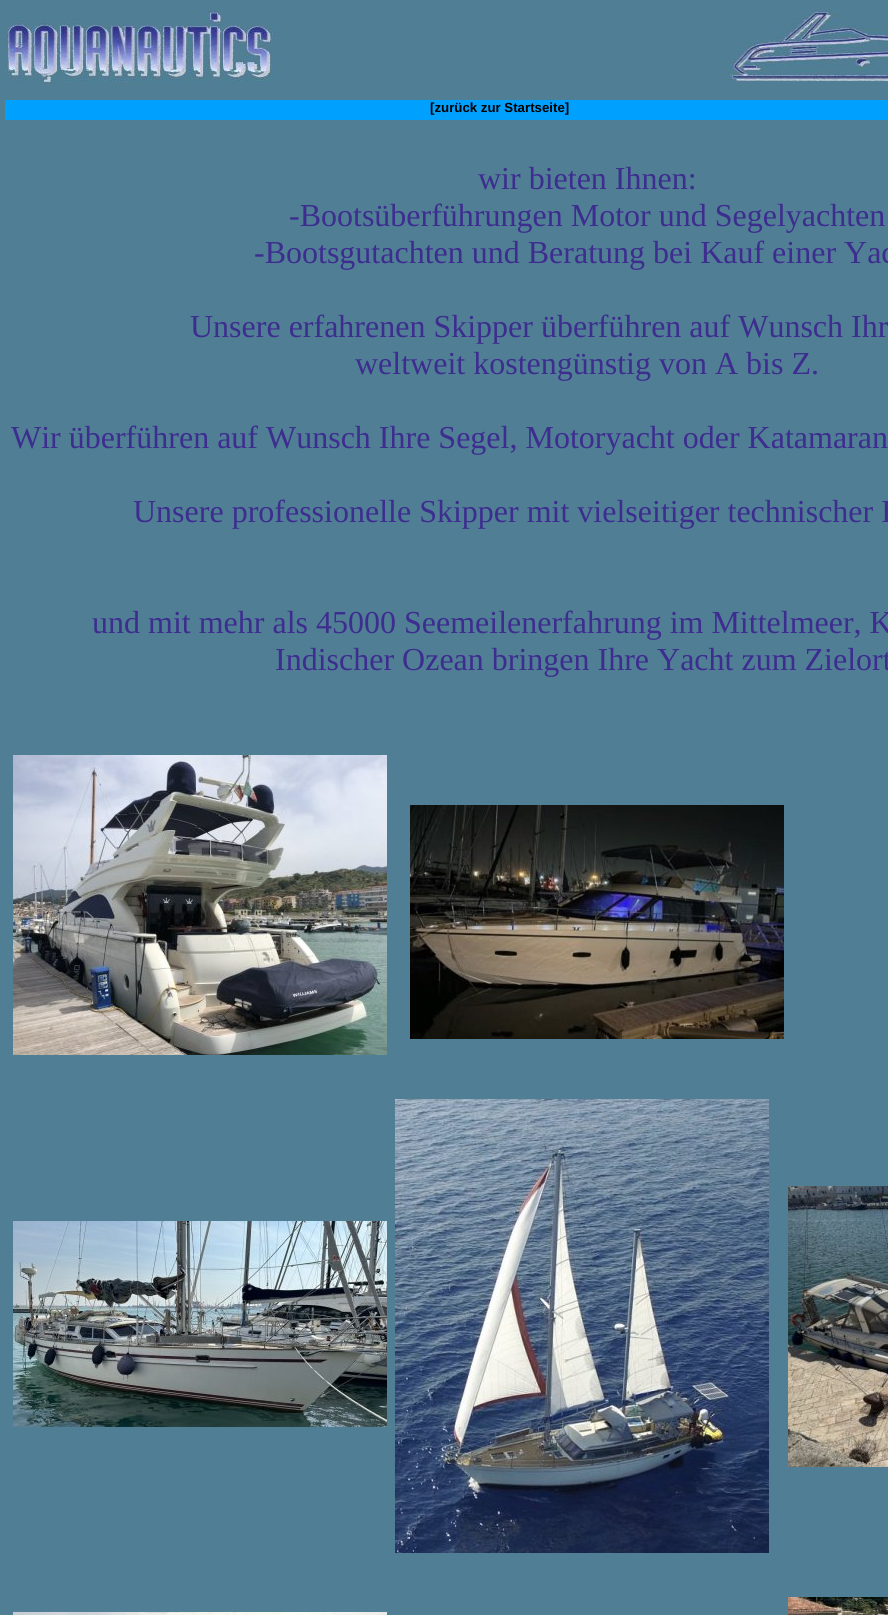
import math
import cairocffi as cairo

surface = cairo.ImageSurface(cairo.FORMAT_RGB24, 888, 1615)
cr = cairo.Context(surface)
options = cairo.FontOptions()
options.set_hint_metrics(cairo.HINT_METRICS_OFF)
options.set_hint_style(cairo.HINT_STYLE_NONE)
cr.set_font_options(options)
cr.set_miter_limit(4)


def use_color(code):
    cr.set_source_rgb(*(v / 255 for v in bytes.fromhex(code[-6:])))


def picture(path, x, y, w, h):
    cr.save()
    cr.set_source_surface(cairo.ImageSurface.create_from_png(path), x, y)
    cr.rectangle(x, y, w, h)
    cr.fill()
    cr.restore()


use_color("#507e95")
cr.paint()
picture("img1.png", 5, 10, 270, 75)
picture("img2.png", 730, 10, 158, 75)
use_color("#00a0ff")
cr.rectangle(5, 100, 883, 20)
cr.fill()
cr.select_font_face("Liberation Sans", cairo.FONT_SLANT_NORMAL, cairo.FONT_WEIGHT_BOLD)
cr.set_font_size(13.25)
use_color("#000000")
cr.move_to(430, 112)
cr.show_text("[zurück zur Startseite]")
cr.select_font_face("Liberation Serif")
cr.set_font_size(32)
use_color("#3c2d8f")
cr.move_to(478, 189)
cr.show_text("wir bieten Ihnen:")
cr.move_to(289, 226)
cr.show_text("-Bootsüberführungen Motor und Segelyachten")
cr.move_to(254, 263)
cr.show_text("-Bootsgutachten und Beratung bei Kauf einer Yac")
cr.move_to(190, 337)
cr.show_text("Unsere erfahrenen Skipper überführen auf Wunsch Ihr")
cr.move_to(355, 374)
cr.show_text("weltweit kostengünstig von A bis Z.")
cr.move_to(11, 448)
cr.show_text("Wir überführen auf Wunsch Ihre Segel, Motoryacht oder Katamaran")
cr.move_to(133, 522)
cr.show_text("Unsere professionelle Skipper mit vielseitiger technischer E")
cr.move_to(92, 633)
cr.show_text("und mit mehr als 45000 Seemeilenerfahrung im Mittelmeer, K")
cr.move_to(275, 670)
cr.show_text("Indischer Ozean bringen Ihre Yacht zum Zielort")
picture("img3.png", 13, 755, 374, 300)
picture("img4.png", 410, 805, 374, 234)
picture("img5.png", 13, 1221, 374, 206)
picture("img6.png", 395, 1099, 374, 454)
picture("img7.png", 788, 1186, 100, 281)
picture("img8.png", 13, 1612, 374, 3)
picture("img9.png", 788, 1597, 100, 18)
surface.write_to_png("result.png")
